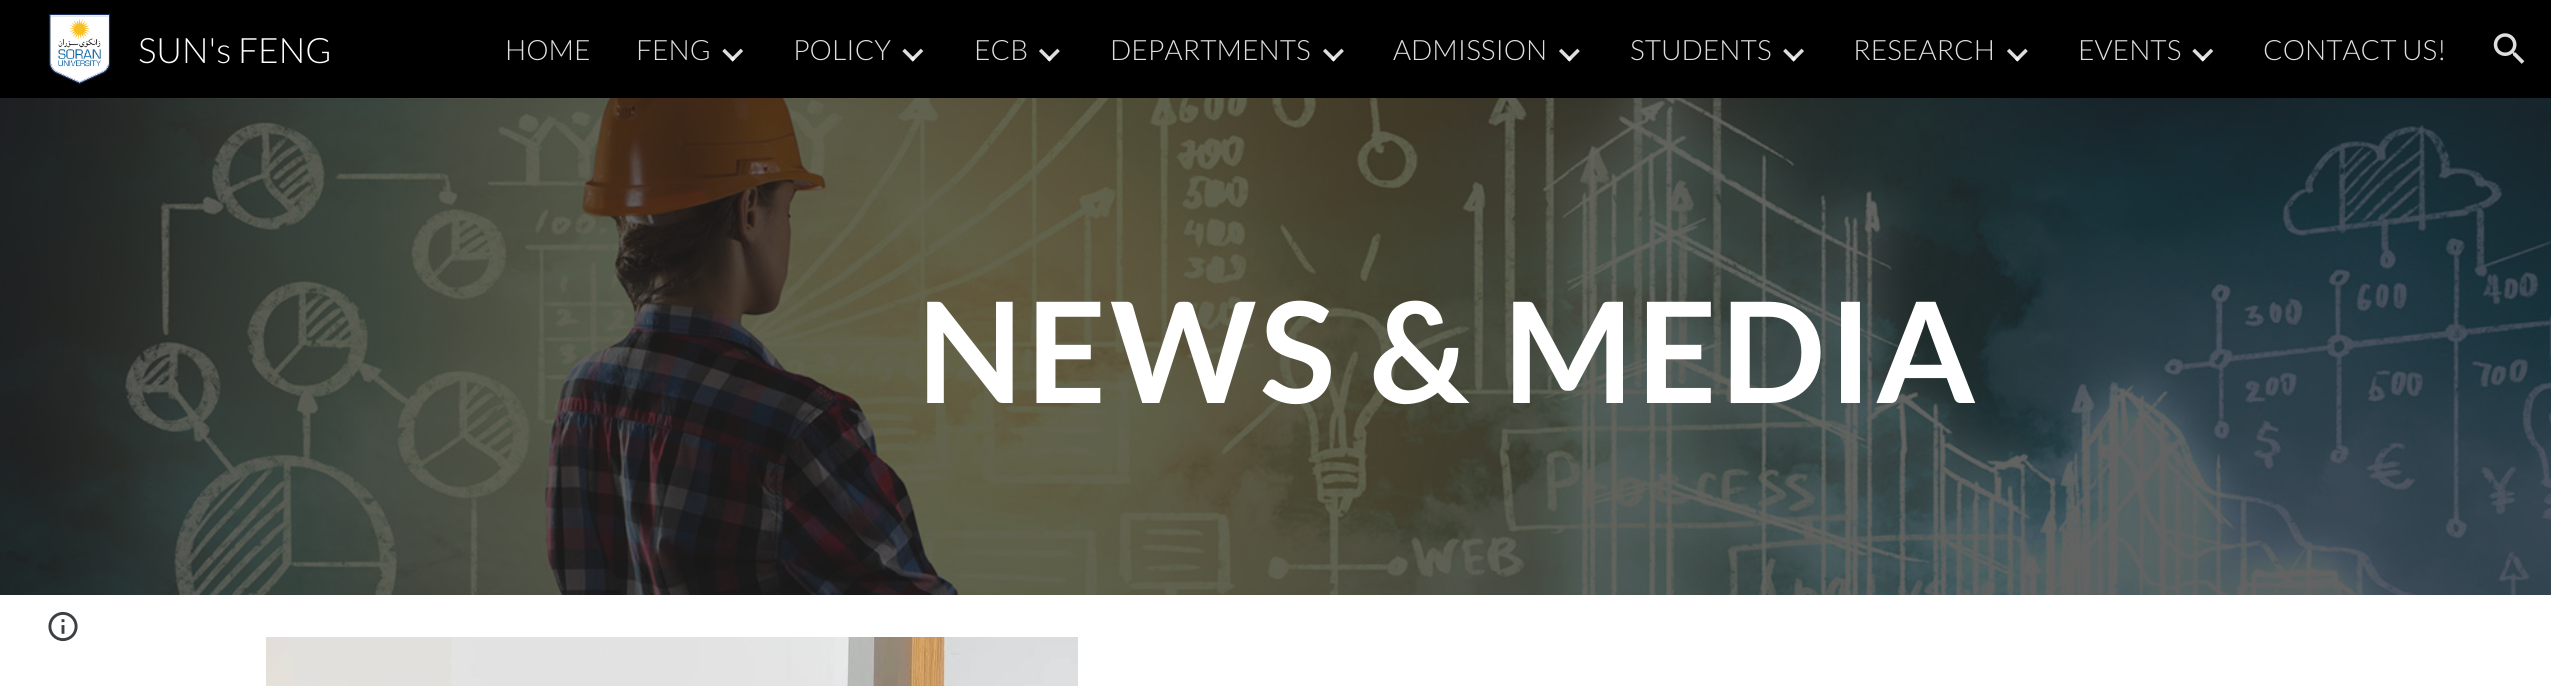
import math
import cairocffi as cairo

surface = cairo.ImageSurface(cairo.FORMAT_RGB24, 2551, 686)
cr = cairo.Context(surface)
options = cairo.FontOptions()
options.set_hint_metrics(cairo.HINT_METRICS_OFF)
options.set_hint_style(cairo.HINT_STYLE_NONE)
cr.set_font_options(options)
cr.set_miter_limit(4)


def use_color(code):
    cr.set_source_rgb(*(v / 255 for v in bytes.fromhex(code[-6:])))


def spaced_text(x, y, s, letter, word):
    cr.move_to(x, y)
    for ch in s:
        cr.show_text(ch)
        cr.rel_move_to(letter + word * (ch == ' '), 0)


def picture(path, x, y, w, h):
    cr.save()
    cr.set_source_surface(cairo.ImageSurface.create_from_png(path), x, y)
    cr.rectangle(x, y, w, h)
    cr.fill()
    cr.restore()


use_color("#ffffff")
cr.paint()
use_color("#000000")
cr.rectangle(0, 0, 2551, 98)
cr.fill()
picture("img1.png", 48, 14, 63, 70)
cr.select_font_face("Lato Light")
cr.set_font_size(35)
use_color("#ffffff")
cr.move_to(138, 63)
cr.show_text("SUN's FENG")
cr.set_font_size(28)
use_color("#dedede")
cr.move_to(505, 60)
cr.show_text("HOME")
cr.move_to(636, 60)
cr.show_text("FENG")
picture("img2.png", 722, 48, 22, 14)
cr.move_to(793, 60)
cr.show_text("POLICY")
picture("img3.png", 902, 48, 22, 14)
cr.move_to(974, 60)
cr.show_text("ECB")
picture("img4.png", 1039, 48, 21, 14)
cr.move_to(1110, 60)
cr.show_text("DEPARTMENTS")
picture("img5.png", 1323, 48, 21, 14)
cr.move_to(1393, 60)
cr.show_text("ADMISSION")
picture("img6.png", 1559, 48, 21, 14)
cr.move_to(1630, 60)
cr.show_text("STUDENTS")
picture("img7.png", 1783, 48, 21, 14)
cr.move_to(1853, 60)
cr.show_text("RESEARCH")
picture("img8.png", 2007, 48, 21, 14)
cr.move_to(2078, 60)
cr.show_text("EVENTS")
picture("img9.png", 2192, 48, 22, 14)
cr.move_to(2263, 60)
cr.show_text("CONTACT US!")
picture("img10.png", 2493, 33, 32, 31)
picture("img11.png", 0, 98, 2551, 497)
cr.select_font_face("Lato", cairo.FONT_SLANT_NORMAL, cairo.FONT_WEIGHT_BOLD)
cr.set_font_size(140)
use_color("#ffffff")
spaced_text(917, 403, "NEWS & MEDIA", 3.5, 0)
picture("img12.png", 266, 637, 812, 49)
picture("img13.png", 48, 611, 30, 31)
surface.write_to_png("result.png")
